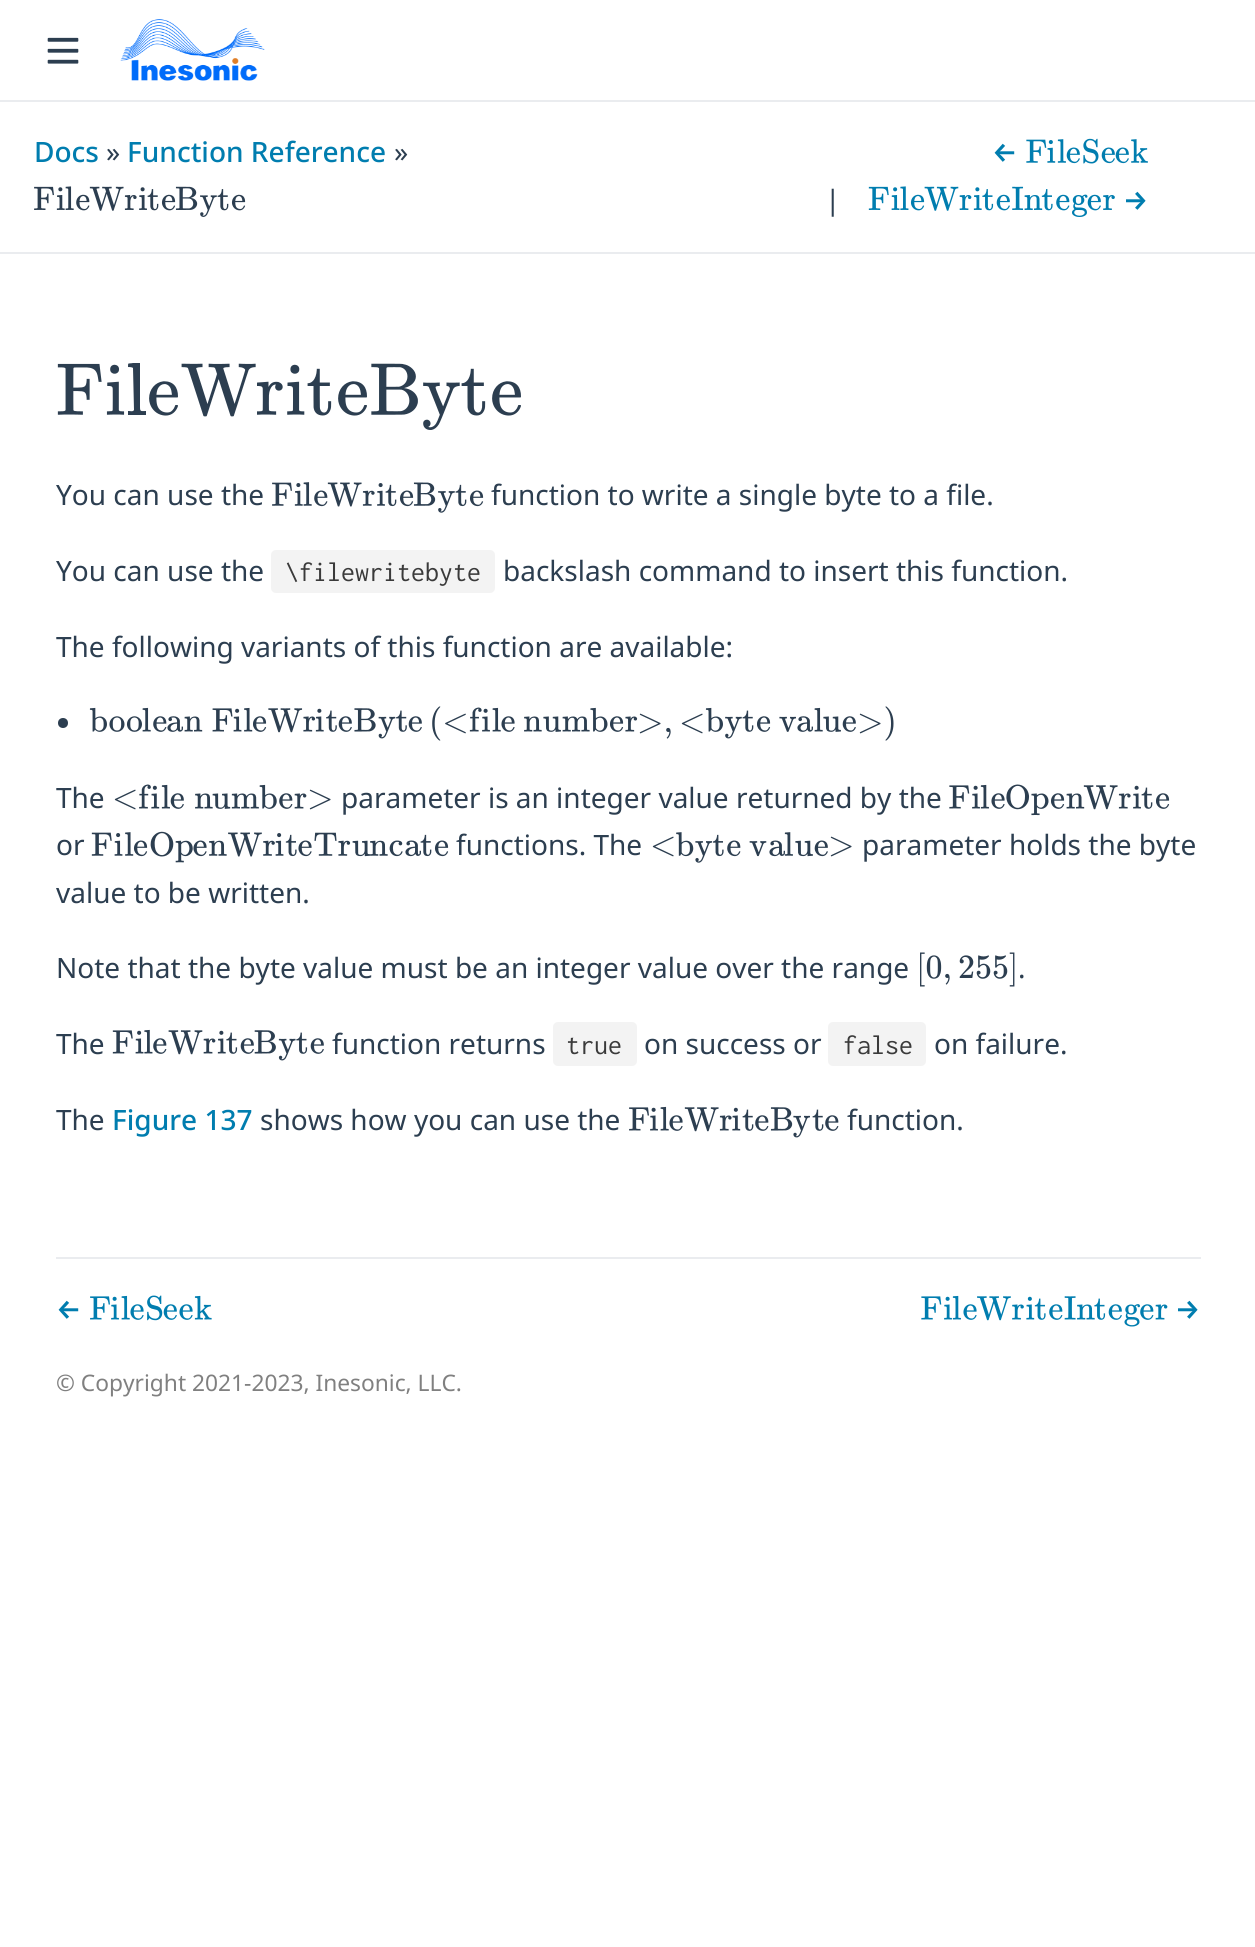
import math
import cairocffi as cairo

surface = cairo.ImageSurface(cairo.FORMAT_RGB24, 1255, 1947)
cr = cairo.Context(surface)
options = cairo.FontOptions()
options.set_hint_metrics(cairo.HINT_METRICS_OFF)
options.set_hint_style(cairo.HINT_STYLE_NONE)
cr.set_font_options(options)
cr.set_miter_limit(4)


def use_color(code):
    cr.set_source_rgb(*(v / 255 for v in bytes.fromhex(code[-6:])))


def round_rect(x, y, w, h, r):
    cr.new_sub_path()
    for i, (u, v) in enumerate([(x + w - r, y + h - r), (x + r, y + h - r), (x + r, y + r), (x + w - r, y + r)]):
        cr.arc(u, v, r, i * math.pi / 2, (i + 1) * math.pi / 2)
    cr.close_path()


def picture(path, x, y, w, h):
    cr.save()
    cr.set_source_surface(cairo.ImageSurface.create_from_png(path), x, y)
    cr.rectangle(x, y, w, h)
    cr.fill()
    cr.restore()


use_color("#ffffff")
cr.paint()
use_color("#eaecef")
cr.rectangle(0, 100, 1255, 2)
cr.fill()
picture("img1.png", 47, 37, 32, 27)
picture("img2.png", 120, 19, 145, 62)
cr.select_font_face("Noto Sans Medium")
cr.set_font_size(28)
use_color("#007daf")
cr.move_to(34, 162)
cr.show_text("Docs")
cr.select_font_face("Noto Sans")
use_color("#2c3e50")
cr.move_to(106, 162)
cr.show_text("»")
cr.select_font_face("Noto Sans Medium")
use_color("#007daf")
cr.move_to(127, 162)
cr.show_text("Function Reference")
cr.select_font_face("Noto Sans")
use_color("#2c3e50")
cr.move_to(394, 162)
cr.show_text("»")
picture("img3.png", 34, 186, 20, 24)
picture("img4.png", 56, 187, 9, 23)
picture("img5.png", 65, 186, 9, 24)
picture("img6.png", 76, 194, 14, 17)
picture("img7.png", 89, 186, 35, 25)
picture("img8.png", 124, 195, 13, 15)
picture("img9.png", 139, 187, 8, 23)
picture("img10.png", 147, 189, 12, 22)
picture("img11.png", 161, 194, 15, 17)
picture("img12.png", 175, 186, 23, 24)
picture("img13.png", 200, 195, 17, 22)
picture("img10.png", 217, 189, 12, 22)
picture("img11.png", 231, 194, 15, 17)
cr.select_font_face("Fira Sans Medium")
use_color("#007daf")
cr.move_to(992, 162)
cr.show_text("←")
picture("img14.png", 1026, 139, 21, 24)
picture("img15.png", 1047, 140, 9, 23)
picture("img16.png", 1057, 139, 9, 24)
picture("img17.png", 1066, 147, 14, 17)
picture("img18.png", 1083, 138, 16, 26)
picture("img17.png", 1101, 147, 14, 17)
picture("img17.png", 1115, 147, 14, 17)
picture("img19.png", 1131, 139, 17, 24)
cr.select_font_face("Noto Sans")
use_color("#2c3e50")
cr.move_to(825, 210)
cr.show_text("|")
picture("img20.png", 868, 186, 21, 24)
picture("img21.png", 891, 187, 9, 23)
picture("img22.png", 900, 186, 9, 24)
picture("img23.png", 910, 194, 15, 17)
picture("img24.png", 924, 186, 35, 25)
picture("img25.png", 959, 195, 13, 15)
picture("img26.png", 973, 187, 9, 23)
picture("img27.png", 982, 189, 12, 22)
picture("img28.png", 996, 194, 14, 17)
picture("img29.png", 1012, 186, 12, 24)
picture("img30.png", 1024, 195, 19, 15)
picture("img31.png", 1041, 189, 12, 22)
picture("img32.png", 1056, 194, 14, 17)
picture("img33.png", 1072, 194, 16, 23)
picture("img34.png", 1087, 194, 14, 17)
picture("img35.png", 1103, 195, 12, 15)
cr.select_font_face("Fira Sans Medium")
use_color("#007daf")
cr.move_to(1123, 210)
cr.show_text("→")
use_color("#eaecef")
cr.rectangle(0, 252, 1255, 2)
cr.fill()
picture("img36.png", 57, 363, 45, 52)
picture("img37.png", 106, 364, 19, 51)
use_color("#2c3e50")
cr.new_path()
cr.move_to(129, 411)
cr.line_to(128, 411)
cr.line_to(128, 415)
cr.line_to(146, 415)
cr.line_to(146, 411)
cr.curve_to(141, 411, 140, 412, 140, 407)
cr.line_to(140, 363)
cr.line_to(133, 363)
cr.curve_to(128, 364, 128, 362, 128, 367)
cr.curve_to(129, 367, 132, 367, 133, 368)
cr.line_to(134, 410)
cr.curve_to(133, 412, 130, 411, 129, 411)
cr.close_path()
cr.fill()
picture("img38.png", 149, 381, 29, 35)
picture("img39.png", 181, 363, 75, 54)
picture("img40.png", 257, 381, 26, 34)
picture("img41.png", 287, 364, 18, 51)
picture("img42.png", 307, 368, 25, 48)
picture("img38.png", 338, 381, 29, 35)
picture("img43.png", 371, 363, 47, 52)
picture("img44.png", 423, 382, 37, 48)
picture("img42.png", 461, 368, 25, 48)
picture("img38.png", 492, 381, 29, 35)
cr.select_font_face("Noto Sans")
cr.move_to(56, 505)
cr.show_text("You can use the")
picture("img45.png", 272, 482, 20, 24)
picture("img46.png", 294, 483, 9, 23)
picture("img47.png", 303, 482, 9, 24)
picture("img48.png", 314, 490, 14, 17)
picture("img49.png", 327, 482, 35, 25)
picture("img50.png", 362, 490, 13, 16)
picture("img51.png", 377, 483, 8, 23)
picture("img52.png", 385, 484, 12, 23)
picture("img53.png", 399, 490, 15, 17)
picture("img54.png", 413, 482, 23, 24)
picture("img55.png", 438, 491, 17, 22)
picture("img52.png", 455, 484, 12, 23)
picture("img53.png", 469, 490, 15, 17)
cr.move_to(491, 505)
cr.show_text("function to write a single byte to a file.")
cr.move_to(56, 581)
cr.show_text("You can use the")
use_color("#f3f3f3")
round_rect(271, 550, 224, 43, 5)
cr.fill()
cr.select_font_face("Inconsolata")
use_color("#3a3a3a")
cr.move_to(285, 581)
cr.show_text("\\filewritebyte")
cr.select_font_face("Noto Sans")
use_color("#2c3e50")
cr.move_to(503, 581)
cr.show_text("backslash command to insert this function.")
cr.move_to(56, 657)
cr.show_text("The following variants of this function are available:")
cr.new_path()
cr.arc(63, 723, 5, 0, 2 * math.pi)
cr.fill()
picture("img56.png", 89, 707, 18, 25)
picture("img57.png", 109, 716, 16, 16)
picture("img58.png", 126, 716, 16, 16)
picture("img59.png", 142, 707, 9, 25)
picture("img60.png", 153, 716, 14, 16)
picture("img61.png", 167, 716, 16, 16)
picture("img62.png", 184, 716, 19, 16)
picture("img63.png", 212, 708, 21, 24)
picture("img64.png", 233, 708, 9, 24)
picture("img65.png", 244, 707, 9, 25)
picture("img66.png", 253, 716, 14, 16)
picture("img67.png", 268, 708, 35, 25)
picture("img68.png", 303, 716, 13, 16)
picture("img69.png", 315, 708, 9, 24)
picture("img70.png", 326, 710, 11, 22)
picture("img71.png", 338, 716, 14, 16)
picture("img72.png", 354, 708, 22, 24)
picture("img73.png", 378, 716, 18, 23)
picture("img70.png", 396, 710, 11, 22)
picture("img71.png", 408, 716, 14, 16)
cr.select_font_face("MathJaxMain")
cr.set_font_size(34)
cr.move_to(429, 732)
cr.show_text("(<")
picture("img74.png", 469, 707, 13, 25)
picture("img75.png", 482, 708, 8, 24)
picture("img59.png", 492, 707, 9, 25)
picture("img76.png", 501, 716, 14, 16)
picture("img77.png", 524, 716, 18, 16)
picture("img78.png", 543, 716, 18, 16)
picture("img79.png", 562, 716, 28, 16)
picture("img80.png", 590, 707, 18, 25)
picture("img66.png", 610, 716, 14, 16)
picture("img68.png", 625, 716, 13, 16)
cr.move_to(637, 732)
cr.show_text(">,")
cr.move_to(679, 732)
cr.show_text("<")
picture("img56.png", 705, 707, 18, 25)
picture("img81.png", 725, 716, 17, 23)
picture("img82.png", 742, 710, 12, 22)
picture("img66.png", 757, 716, 14, 16)
picture("img83.png", 779, 716, 17, 16)
picture("img61.png", 797, 716, 16, 16)
picture("img59.png", 814, 707, 9, 25)
picture("img78.png", 823, 716, 18, 16)
picture("img71.png", 842, 716, 14, 16)
cr.move_to(857, 732)
cr.show_text(">)")
cr.select_font_face("Noto Sans")
cr.set_font_size(28)
cr.move_to(56, 808)
cr.show_text("The")
cr.select_font_face("MathJaxMain")
cr.set_font_size(34)
cr.move_to(112, 808)
cr.show_text("<")
picture("img84.png", 139, 784, 12, 25)
picture("img85.png", 151, 785, 9, 24)
picture("img86.png", 161, 784, 9, 25)
picture("img71.png", 170, 793, 14, 16)
picture("img77.png", 195, 793, 18, 16)
picture("img87.png", 212, 793, 19, 16)
picture("img88.png", 231, 793, 28, 16)
picture("img89.png", 259, 784, 18, 25)
picture("img60.png", 279, 793, 14, 16)
picture("img90.png", 294, 793, 13, 16)
cr.move_to(307, 808)
cr.show_text(">")
cr.select_font_face("Noto Sans")
cr.set_font_size(28)
cr.move_to(341, 808)
cr.show_text("parameter is an integer value returned by the")
picture("img91.png", 949, 785, 21, 24)
picture("img75.png", 972, 785, 8, 24)
picture("img86.png", 980, 784, 9, 25)
picture("img76.png", 991, 793, 14, 16)
picture("img92.png", 1006, 784, 24, 26)
picture("img93.png", 1031, 793, 18, 23)
picture("img66.png", 1051, 793, 14, 16)
picture("img62.png", 1066, 793, 19, 16)
picture("img94.png", 1083, 785, 35, 25)
picture("img95.png", 1118, 793, 13, 16)
picture("img75.png", 1133, 785, 8, 24)
picture("img82.png", 1141, 787, 12, 22)
picture("img66.png", 1156, 793, 14, 16)
cr.move_to(56, 855)
cr.show_text("or")
picture("img96.png", 91, 832, 21, 24)
picture("img97.png", 114, 833, 9, 23)
picture("img98.png", 125, 832, 9, 24)
picture("img99.png", 133, 840, 15, 17)
picture("img100.png", 150, 831, 24, 26)
picture("img101.png", 175, 840, 18, 23)
picture("img102.png", 193, 840, 14, 17)
picture("img103.png", 209, 840, 18, 16)
picture("img104.png", 228, 832, 34, 25)
picture("img105.png", 263, 840, 12, 16)
picture("img97.png", 275, 833, 9, 23)
picture("img106.png", 285, 834, 12, 23)
picture("img102.png", 298, 840, 14, 17)
picture("img107.png", 314, 832, 23, 24)
picture("img108.png", 338, 840, 13, 16)
picture("img109.png", 352, 840, 19, 17)
picture("img110.png", 370, 840, 18, 16)
picture("img111.png", 389, 840, 14, 17)
picture("img112.png", 405, 840, 16, 17)
picture("img113.png", 420, 834, 12, 23)
picture("img53.png", 434, 840, 15, 17)
cr.move_to(456, 855)
cr.show_text("functions. The")
cr.select_font_face("MathJaxMain")
cr.set_font_size(34)
cr.move_to(650, 855)
cr.show_text("<")
picture("img114.png", 676, 832, 18, 25)
picture("img115.png", 695, 841, 17, 22)
picture("img116.png", 712, 834, 12, 23)
picture("img48.png", 727, 840, 14, 17)
picture("img117.png", 749, 841, 18, 16)
picture("img112.png", 769, 840, 16, 17)
picture("img118.png", 784, 832, 9, 24)
picture("img119.png", 795, 840, 18, 17)
picture("img120.png", 814, 840, 14, 17)
cr.move_to(828, 855)
cr.show_text(">")
cr.select_font_face("Noto Sans")
cr.set_font_size(28)
cr.move_to(862, 855)
cr.show_text("parameter holds the byte")
cr.move_to(56, 903)
cr.show_text("value to be written.")
cr.move_to(56, 978)
cr.show_text("Note that the byte value must be an integer value over the range")
cr.select_font_face("MathJaxMain")
cr.set_font_size(34)
cr.move_to(916, 978)
cr.show_text("[0,")
cr.move_to(958, 978)
cr.show_text("255]")
cr.select_font_face("Noto Sans")
cr.set_font_size(28)
cr.move_to(1018, 978)
cr.show_text(".")
cr.move_to(56, 1054)
cr.show_text("The")
picture("img121.png", 112, 1030, 21, 24)
picture("img64.png", 135, 1030, 9, 24)
picture("img122.png", 144, 1029, 9, 25)
picture("img60.png", 153, 1038, 14, 16)
picture("img123.png", 168, 1030, 35, 25)
picture("img90.png", 203, 1038, 13, 16)
picture("img124.png", 217, 1030, 9, 24)
picture("img125.png", 226, 1032, 12, 22)
picture("img71.png", 240, 1038, 14, 16)
picture("img126.png", 254, 1030, 22, 24)
picture("img127.png", 278, 1038, 18, 23)
picture("img125.png", 296, 1032, 12, 22)
picture("img71.png", 310, 1038, 14, 16)
cr.move_to(332, 1054)
cr.show_text("function returns")
use_color("#f3f3f3")
round_rect(553, 1022, 84, 44, 5)
cr.fill()
cr.select_font_face("Inconsolata")
use_color("#3a3a3a")
cr.move_to(566, 1054)
cr.show_text("true")
cr.select_font_face("Noto Sans")
use_color("#2c3e50")
cr.move_to(644, 1054)
cr.show_text("on success or")
use_color("#f3f3f3")
round_rect(828, 1022, 98, 44, 5)
cr.fill()
cr.select_font_face("Inconsolata")
use_color("#3a3a3a")
cr.move_to(843, 1054)
cr.show_text("false")
cr.select_font_face("Noto Sans")
use_color("#2c3e50")
cr.move_to(934, 1054)
cr.show_text("on failure.")
cr.move_to(56, 1130)
cr.show_text("The")
cr.select_font_face("Noto Sans Medium")
use_color("#007daf")
cr.move_to(112, 1130)
cr.show_text("Figure 137")
cr.select_font_face("Noto Sans")
use_color("#2c3e50")
cr.move_to(260, 1130)
cr.show_text("shows how you can use the")
picture("img128.png", 629, 1107, 20, 24)
picture("img75.png", 650, 1107, 8, 24)
picture("img59.png", 660, 1106, 9, 25)
picture("img76.png", 669, 1115, 14, 16)
picture("img129.png", 684, 1107, 35, 25)
picture("img95.png", 719, 1115, 13, 16)
picture("img85.png", 732, 1107, 9, 24)
picture("img82.png", 742, 1109, 12, 22)
picture("img60.png", 755, 1115, 14, 16)
picture("img130.png", 770, 1107, 23, 24)
picture("img131.png", 793, 1115, 17, 23)
picture("img82.png", 812, 1109, 12, 22)
picture("img60.png", 825, 1115, 14, 16)
cr.move_to(847, 1130)
cr.show_text("function.")
use_color("#eaecef")
cr.rectangle(56, 1257, 1145, 2)
cr.fill()
cr.select_font_face("Fira Sans Medium")
use_color("#007daf")
cr.move_to(56, 1319)
cr.show_text("←")
picture("img132.png", 90, 1296, 20, 24)
picture("img133.png", 111, 1296, 8, 24)
picture("img134.png", 121, 1295, 9, 25)
picture("img135.png", 130, 1304, 14, 16)
picture("img136.png", 147, 1295, 16, 26)
picture("img137.png", 163, 1304, 14, 16)
picture("img135.png", 179, 1304, 14, 16)
picture("img138.png", 194, 1295, 18, 25)
picture("img139.png", 921, 1296, 21, 24)
picture("img133.png", 944, 1296, 8, 24)
picture("img140.png", 952, 1295, 9, 25)
picture("img135.png", 963, 1304, 14, 16)
picture("img141.png", 977, 1296, 34, 25)
picture("img142.png", 1012, 1304, 12, 16)
picture("img143.png", 1026, 1296, 9, 24)
picture("img144.png", 1034, 1298, 12, 22)
picture("img145.png", 1049, 1304, 14, 16)
picture("img146.png", 1064, 1296, 12, 24)
picture("img147.png", 1077, 1304, 18, 16)
picture("img148.png", 1094, 1298, 12, 22)
picture("img137.png", 1108, 1304, 14, 16)
picture("img149.png", 1124, 1304, 16, 23)
picture("img145.png", 1140, 1304, 14, 16)
picture("img150.png", 1155, 1304, 13, 16)
cr.move_to(1175, 1319)
cr.show_text("→")
cr.select_font_face("Noto Sans")
cr.set_font_size(22.75)
use_color("#808080")
cr.move_to(56, 1391)
cr.show_text("© Copyright 2021-2023, Inesonic, LLC.")
surface.write_to_png("result.png")
